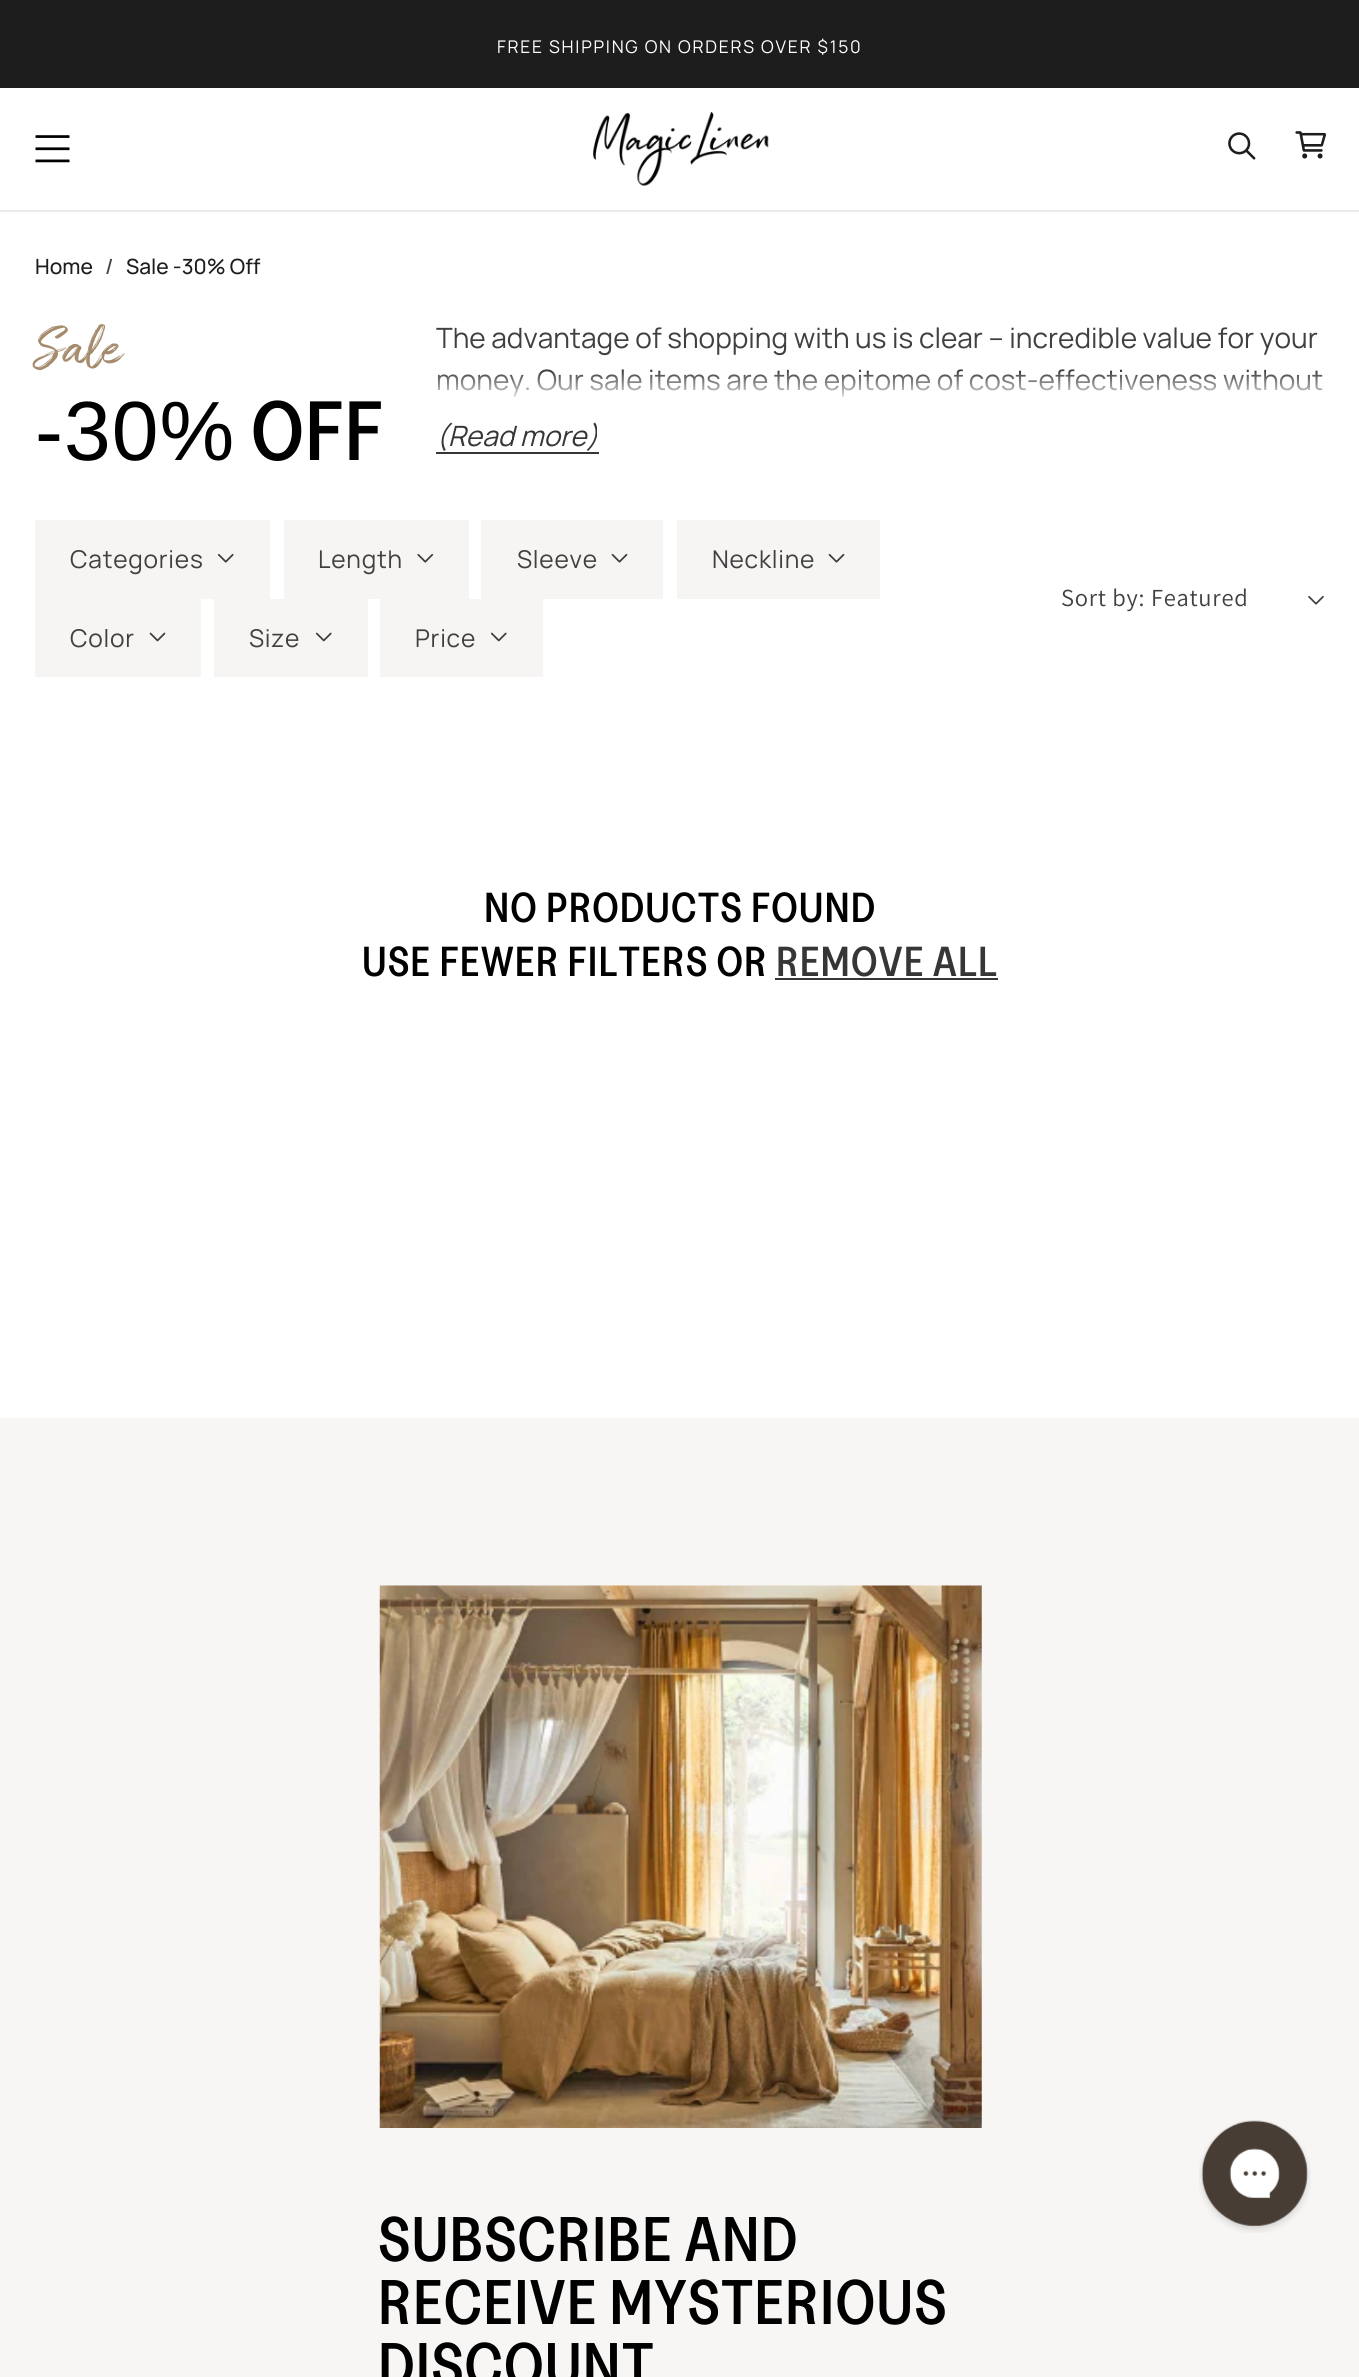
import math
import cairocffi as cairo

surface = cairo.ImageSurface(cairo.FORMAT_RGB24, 1359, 2377)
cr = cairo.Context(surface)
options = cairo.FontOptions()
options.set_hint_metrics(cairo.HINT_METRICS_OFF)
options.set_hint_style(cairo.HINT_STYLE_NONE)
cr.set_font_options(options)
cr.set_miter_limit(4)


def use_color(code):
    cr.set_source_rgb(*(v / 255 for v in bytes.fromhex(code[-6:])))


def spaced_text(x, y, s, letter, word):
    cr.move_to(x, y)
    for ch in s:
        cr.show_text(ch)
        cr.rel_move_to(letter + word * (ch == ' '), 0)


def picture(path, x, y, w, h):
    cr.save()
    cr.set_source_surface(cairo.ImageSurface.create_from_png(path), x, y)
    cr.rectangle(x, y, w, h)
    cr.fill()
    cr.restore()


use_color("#ffffff")
cr.paint()
use_color("#1d1d1d")
cr.rectangle(0, 0, 1359, 88)
cr.fill()
cr.select_font_face("Manrope")
cr.set_font_size(17.5)
use_color("#ffffff")
spaced_text(497, 53, "FREE SHIPPING ON ORDERS OVER $150", 1.75, 0)
use_color("#ebebeb")
cr.rectangle(0, 210, 1359, 2)
cr.fill()
picture("img1.png", 35, 135, 35, 28)
picture("img2.png", 593, 112, 176, 74)
picture("img3.png", 1228, 132, 28, 28)
picture("img4.png", 1295, 131, 31, 28)
cr.select_font_face("Manrope Medium")
cr.set_font_size(21)
use_color("#1d1d1d")
cr.move_to(35, 274)
cr.show_text("Home")
use_color("#404040")
cr.move_to(105, 274)
cr.show_text("/")
use_color("#1d1d1d")
cr.move_to(126, 274)
cr.show_text("Sale -30% Off")
cr.select_font_face("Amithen")
cr.set_font_size(56)
use_color("#a58b6c")
spaced_text(35, 363, "Sale", 1.05, 0)
cr.select_font_face("Liberation Sans")
cr.set_font_size(84)
use_color("#000000")
spaced_text(35, 460, "-30%", 1.05, 0)
cr.select_font_face("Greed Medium")
spaced_text(251, 460, "OFF", 1.05, 0)
cr.select_font_face("Manrope")
cr.set_font_size(28)
use_color("#404040")
cr.move_to(436, 348)
cr.show_text("The advantage of shopping with us is clear – incredible value for your")
cr.move_to(436, 390)
cr.show_text("money. Our sale items are the epitome of cost-effectiveness without")
gradient = cairo.LinearGradient(880, 371, 880, 434)
gradient.add_color_stop_rgba(0, 1, 1, 1, 0)
gradient.add_color_stop_rgba(0.5, 1, 1, 1, 1)
cr.set_source(gradient)
cr.rectangle(437, 372, 886, 25)
cr.fill()
cr.select_font_face("Manrope", cairo.FONT_SLANT_ITALIC)
use_color("#363636")
cr.move_to(436, 446)
cr.show_text("(Read more)")
cr.rectangle(436, 452, 163, 2)
cr.fill()
use_color("#f7f5f3")
cr.rectangle(35, 520, 235, 79)
cr.fill()
cr.select_font_face("Manrope")
cr.set_font_size(24.5)
use_color("#404040")
spaced_text(70, 568, "Categories", 0.75, 0)
picture("img5.png", 217, 553, 17, 10)
use_color("#f7f5f3")
cr.rectangle(284, 520, 185, 79)
cr.fill()
use_color("#404040")
spaced_text(318, 568, "Length", 0.75, 0)
picture("img6.png", 417, 553, 17, 10)
use_color("#f7f5f3")
cr.rectangle(481, 520, 182, 79)
cr.fill()
use_color("#404040")
spaced_text(517, 568, "Sleeve", 0.75, 0)
picture("img7.png", 611, 553, 17, 10)
use_color("#f7f5f3")
cr.rectangle(677, 520, 203, 79)
cr.fill()
use_color("#404040")
spaced_text(712, 568, "Neckline", 0.75, 0)
picture("img7.png", 828, 553, 17, 10)
use_color("#f7f5f3")
cr.rectangle(35, 599, 166, 78)
cr.fill()
use_color("#404040")
spaced_text(70, 647, "Color", 0.75, 0)
picture("img8.png", 149, 632, 17, 10)
use_color("#f7f5f3")
cr.rectangle(214, 599, 154, 78)
cr.fill()
use_color("#404040")
spaced_text(249, 647, "Size", 0.75, 0)
picture("img9.png", 315, 632, 17, 10)
use_color("#f7f5f3")
cr.rectangle(380, 599, 163, 78)
cr.fill()
use_color("#404040")
spaced_text(415, 647, "Price", 0.75, 0)
picture("img9.png", 490, 632, 17, 10)
cr.select_font_face("Assistant")
spaced_text(1061, 606, "Sort by: Featured", 0.75, 0)
picture("img10.png", 1308, 596, 16, 9)
cr.select_font_face("Greed Medium")
cr.set_font_size(42)
use_color("#000000")
spaced_text(484, 922, "NO PRODUCTS FOUND", 1.05, 0)
spaced_text(362, 976, "USE FEWER FILTERS OR", 1.05, 0)
use_color("#363636")
spaced_text(776, 976, "REMOVE ALL", 1.05, 0)
cr.rectangle(775, 978, 223, 2)
cr.fill()
use_color("#f7f6f4")
cr.rectangle(0, 1418, 1359, 959)
cr.fill()
picture("img11.png", 379, 1585, 603, 543)
cr.set_font_size(63)
use_color("#000000")
spaced_text(378, 2261, "SUBSCRIBE AND", 1.05, 0)
spaced_text(378, 2324, "RECEIVE MYSTERIOUS", 1.05, 0)
spaced_text(378, 2387, "DISCOUNT", 1.05, 0)
picture("img12.png", 1199, 2120, 112, 113)
surface.write_to_png("result.png")
